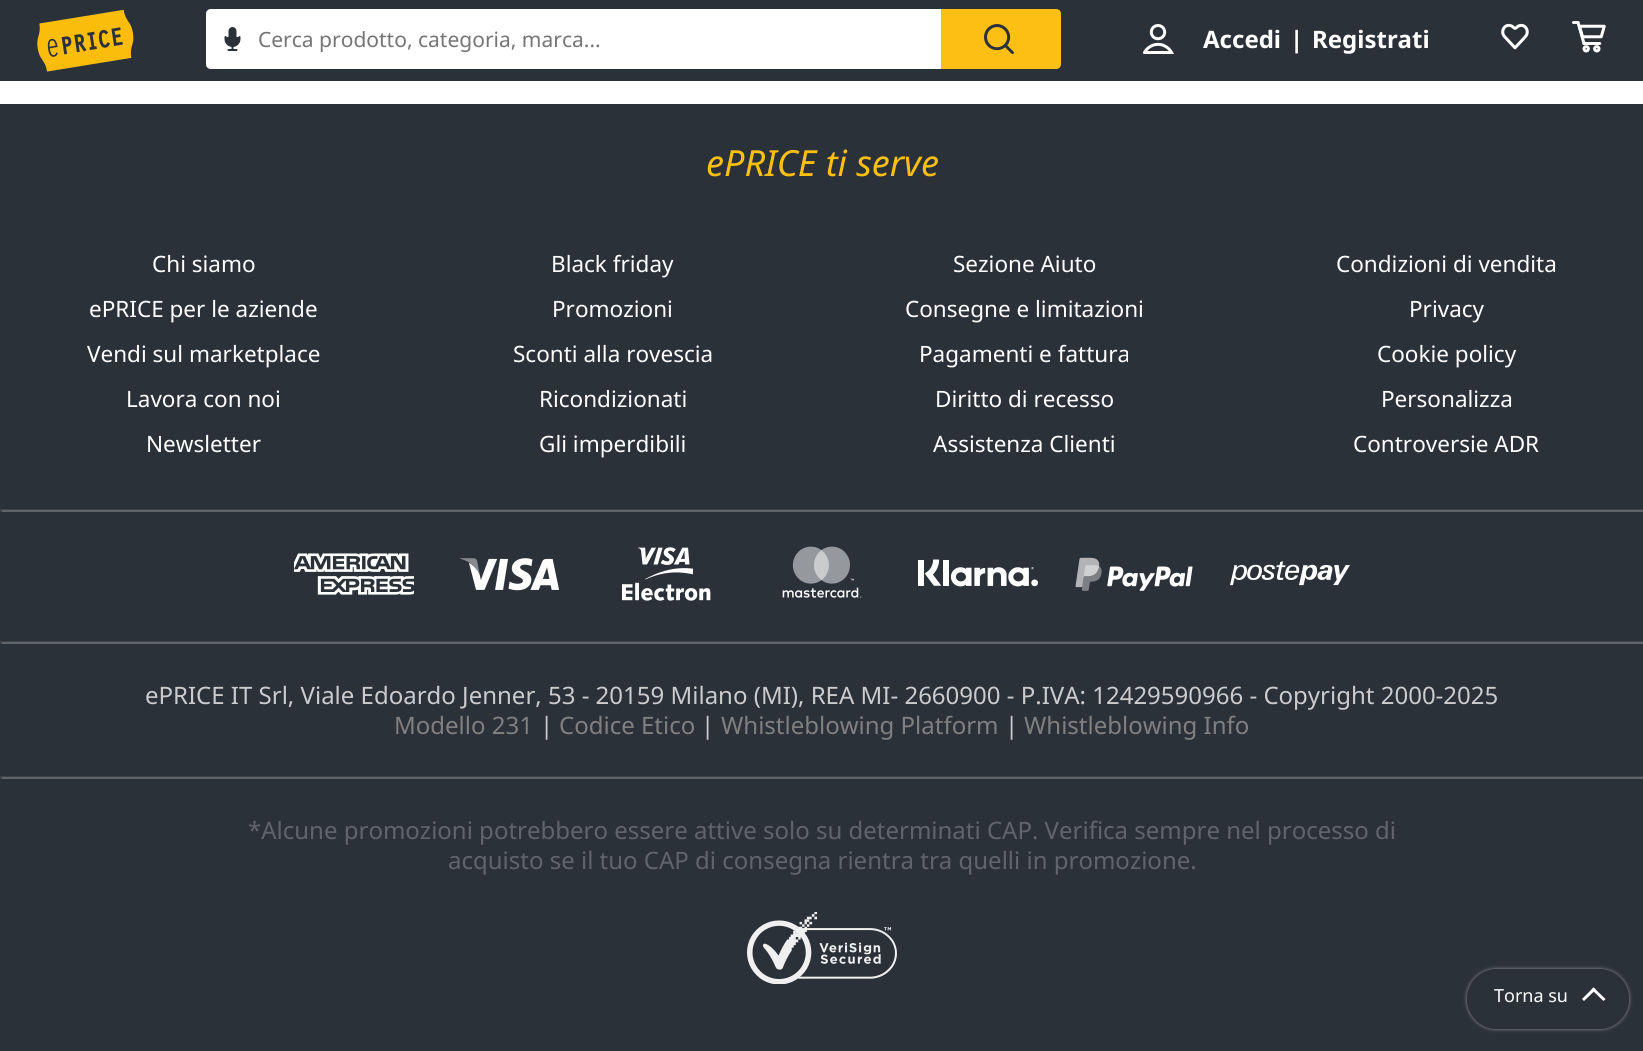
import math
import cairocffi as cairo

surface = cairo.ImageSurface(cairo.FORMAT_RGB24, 1643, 1051)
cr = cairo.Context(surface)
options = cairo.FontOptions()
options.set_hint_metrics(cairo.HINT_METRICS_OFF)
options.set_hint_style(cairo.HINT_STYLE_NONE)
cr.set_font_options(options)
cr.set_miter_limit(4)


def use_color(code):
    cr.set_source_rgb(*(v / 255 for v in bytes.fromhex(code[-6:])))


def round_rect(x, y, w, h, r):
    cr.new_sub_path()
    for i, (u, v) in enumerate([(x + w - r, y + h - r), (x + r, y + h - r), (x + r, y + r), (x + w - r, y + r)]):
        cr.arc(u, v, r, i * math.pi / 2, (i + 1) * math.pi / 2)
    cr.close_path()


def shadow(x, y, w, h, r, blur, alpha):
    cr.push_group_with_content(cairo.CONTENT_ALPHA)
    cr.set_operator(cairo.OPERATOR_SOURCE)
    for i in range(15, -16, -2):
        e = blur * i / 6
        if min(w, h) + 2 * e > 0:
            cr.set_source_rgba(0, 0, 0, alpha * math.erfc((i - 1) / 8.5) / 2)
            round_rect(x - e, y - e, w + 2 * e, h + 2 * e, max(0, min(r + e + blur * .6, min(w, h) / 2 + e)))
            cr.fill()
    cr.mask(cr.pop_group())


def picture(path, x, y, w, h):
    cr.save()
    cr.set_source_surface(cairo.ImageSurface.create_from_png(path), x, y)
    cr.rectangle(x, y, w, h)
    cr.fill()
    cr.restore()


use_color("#ffffff")
cr.paint()
use_color("#2b3139")
cr.rectangle(0, 0, 1643, 81)
cr.fill()
picture("img1.png", 37, 9, 97, 63)
use_color("#ffffff")
cr.new_path()
cr.move_to(211, 9)
cr.line_to(941, 9)
cr.line_to(941, 69)
cr.line_to(211, 69)
cr.curve_to(208, 69, 206, 67, 206, 64)
cr.line_to(206, 14)
cr.curve_to(206, 11, 208, 9, 211, 9)
cr.close_path()
cr.fill()
picture("img2.png", 224, 27, 17, 24)
cr.select_font_face("Noto Sans")
cr.set_font_size(21)
use_color("#757575")
cr.move_to(258, 47)
cr.show_text("Cerca prodotto, categoria, marca...")
use_color("#fdbf14")
cr.new_path()
cr.move_to(941, 9)
cr.line_to(1056, 9)
cr.curve_to(1059, 9, 1061, 11, 1061, 14)
cr.line_to(1061, 64)
cr.curve_to(1061, 67, 1059, 69, 1056, 69)
cr.line_to(941, 69)
cr.close_path()
cr.fill()
picture("img3.png", 984, 24, 30, 30)
picture("img4.png", 1143, 24, 31, 30)
cr.select_font_face("Noto Sans", cairo.FONT_SLANT_NORMAL, cairo.FONT_WEIGHT_BOLD)
cr.set_font_size(24)
use_color("#ffffff")
cr.move_to(1203, 48)
cr.show_text("Accedi")
cr.move_to(1290, 48)
cr.show_text("|")
cr.move_to(1312, 48)
cr.show_text("Registrati")
picture("img5.png", 1501, 23, 28, 27)
picture("img6.png", 1572, 21, 34, 32)
use_color("#2b3139")
cr.rectangle(0, 104, 1643, 947)
cr.fill()
cr.select_font_face("Noto Sans", cairo.FONT_SLANT_ITALIC)
cr.set_font_size(36)
use_color("#fdbf14")
cr.move_to(706, 176)
cr.show_text("ePRICE ti serve")
cr.select_font_face("Noto Sans")
cr.set_font_size(22.5)
use_color("#ffffff")
cr.move_to(152, 272)
cr.show_text("Chi siamo")
cr.move_to(89, 317)
cr.show_text("ePRICE per le aziende")
cr.move_to(87, 362)
cr.show_text("Vendi sul marketplace")
cr.move_to(126, 407)
cr.show_text("Lavora con noi")
cr.move_to(146, 452)
cr.show_text("Newsletter")
cr.move_to(551, 272)
cr.show_text("Black friday")
cr.move_to(552, 317)
cr.show_text("Promozioni")
cr.move_to(513, 362)
cr.show_text("Sconti alla rovescia")
cr.move_to(539, 407)
cr.show_text("Ricondizionati")
cr.move_to(539, 452)
cr.show_text("Gli imperdibili")
cr.move_to(953, 272)
cr.show_text("Sezione Aiuto")
cr.move_to(905, 317)
cr.show_text("Consegne e limitazioni")
cr.move_to(919, 362)
cr.show_text("Pagamenti e fattura")
cr.move_to(935, 407)
cr.show_text("Diritto di recesso")
cr.move_to(933, 452)
cr.show_text("Assistenza Clienti")
cr.move_to(1336, 272)
cr.show_text("Condizioni di vendita")
cr.move_to(1409, 317)
cr.show_text("Privacy")
cr.move_to(1377, 362)
cr.show_text("Cookie policy")
cr.move_to(1381, 407)
cr.show_text("Personalizza")
cr.move_to(1353, 452)
cr.show_text("Controversie ADR")
use_color("#3f4347")
cr.rectangle(0, 509, 1643, 1)
cr.fill()
use_color("#5f656b")
cr.rectangle(0, 510, 1643, 2)
cr.fill()
use_color("#3f4347")
cr.rectangle(0, 509, 2, 3)
cr.fill()
picture("img7.png", 294, 553, 120, 42)
picture("img8.png", 460, 558, 100, 33)
picture("img9.png", 622, 547, 89, 54)
picture("img10.png", 782, 546, 80, 52)
picture("img11.png", 918, 559, 120, 28)
picture("img12.png", 1075, 557, 118, 34)
picture("img13.png", 1230, 561, 120, 25)
cr.rectangle(0, 641, 1643, 1)
cr.fill()
use_color("#5f656b")
cr.rectangle(0, 642, 1643, 2)
cr.fill()
use_color("#3f4347")
cr.rectangle(0, 641, 2, 3)
cr.fill()
cr.set_font_size(24)
use_color("#cacbcd")
cr.move_to(145, 704)
cr.show_text("ePRICE IT Srl, Viale Edoardo Jenner, 53 - 20159 Milano (MI), REA MI- 2660900 - P.IVA: 12429590966 - Copyright 2000-2025")
use_color("#808080")
cr.move_to(394, 734)
cr.show_text("Modello 231")
use_color("#cacbcd")
cr.move_to(540, 734)
cr.show_text("|")
use_color("#808080")
cr.move_to(559, 734)
cr.show_text("Codice Etico")
use_color("#cacbcd")
cr.move_to(701, 734)
cr.show_text("|")
use_color("#808080")
cr.move_to(721, 734)
cr.show_text("Whistleblowing Platform")
use_color("#cacbcd")
cr.move_to(1005, 734)
cr.show_text("|")
use_color("#808080")
cr.move_to(1024, 734)
cr.show_text("Whistleblowing Info")
use_color("#3f4347")
cr.rectangle(0, 776, 1643, 1)
cr.fill()
use_color("#5f656b")
cr.rectangle(0, 777, 1643, 2)
cr.fill()
use_color("#3f4347")
cr.rectangle(0, 776, 2, 3)
cr.fill()
use_color("#5f656b")
cr.move_to(248, 839)
cr.show_text("*Alcune promozioni potrebbero essere attive solo su determinati CAP. Verifica sempre nel processo di")
cr.move_to(448, 869)
cr.show_text("acquisto se il tuo CAP di consegna rientra tra quelli in promozione.")
picture("img14.png", 747, 912, 150, 72)
cr.save()
cr.set_fill_rule(cairo.FILL_RULE_EVEN_ODD)
cr.new_path()
cr.move_to(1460, 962)
cr.line_to(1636, 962)
cr.line_to(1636, 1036)
cr.line_to(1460, 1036)
cr.close_path()
cr.move_to(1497, 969)
cr.line_to(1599, 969)
cr.curve_to(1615.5, 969, 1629, 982.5, 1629, 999)
cr.curve_to(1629, 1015.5, 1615.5, 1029, 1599, 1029)
cr.line_to(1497, 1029)
cr.curve_to(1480.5, 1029, 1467, 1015.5, 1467, 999)
cr.curve_to(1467, 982.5, 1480.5, 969, 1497, 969)
cr.close_path()
cr.clip()
use_color("#ffffff")
shadow(1467, 969, 162, 60, 30, 2, 0.5)
cr.restore()
cr.set_source_rgba(0.165, 0.192, 0.224, 0.8)
round_rect(1467, 969, 162, 60, 30)
cr.fill()
cr.set_font_size(18)
use_color("#ffffff")
cr.move_to(1494, 1002)
cr.show_text("Torna su")
cr.new_path()
cr.move_to(1582, 999)
cr.line_to(1593.5, 987.5)
cr.line_to(1596, 989.5)
cr.line_to(1584, 1001)
cr.close_path()
cr.fill()
cr.new_path()
cr.move_to(1591.5, 989.5)
cr.line_to(1593.5, 987.5)
cr.line_to(1605.5, 999)
cr.line_to(1603.5, 1001)
cr.close_path()
cr.fill()
surface.write_to_png("result.png")
